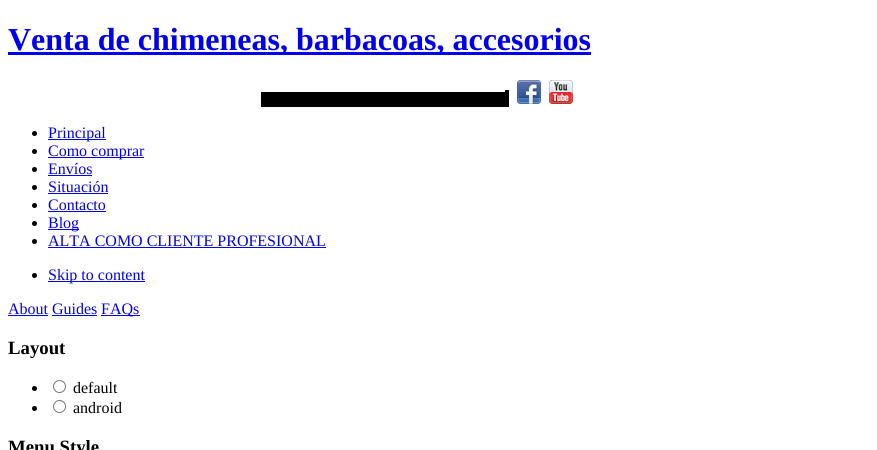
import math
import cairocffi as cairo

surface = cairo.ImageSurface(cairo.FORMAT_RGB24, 877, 450)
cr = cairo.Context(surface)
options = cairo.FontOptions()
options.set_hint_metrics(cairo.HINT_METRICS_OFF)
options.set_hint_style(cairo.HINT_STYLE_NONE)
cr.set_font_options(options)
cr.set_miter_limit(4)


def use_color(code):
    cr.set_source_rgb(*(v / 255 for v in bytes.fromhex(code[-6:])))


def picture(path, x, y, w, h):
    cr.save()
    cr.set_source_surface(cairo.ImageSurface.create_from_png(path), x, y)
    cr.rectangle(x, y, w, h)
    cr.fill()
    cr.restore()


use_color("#ffffff")
cr.paint()
use_color("#0000ee")
cr.rectangle(8, 52, 583, 3)
cr.fill()
cr.select_font_face("Liberation Serif", cairo.FONT_SLANT_NORMAL, cairo.FONT_WEIGHT_BOLD)
cr.set_font_size(32)
cr.move_to(8, 50)
cr.show_text("Venta de chimeneas, barbacoas, accesorios")
use_color("#000000")
cr.rectangle(261, 92, 244, 15)
cr.fill()
cr.rectangle(505, 90, 4, 17)
cr.fill()
picture("img1.png", 517, 80, 24, 24)
picture("img2.png", 549, 80, 24, 24)
cr.arc(34.5, 133.5, 2.5, 0, 2 * math.pi)
cr.fill()
use_color("#0000ee")
cr.rectangle(48, 139, 58, 1)
cr.fill()
cr.select_font_face("Liberation Serif")
cr.set_font_size(16)
cr.move_to(48, 138)
cr.show_text("Principal")
use_color("#000000")
cr.new_path()
cr.arc(34.5, 151.5, 2.5, 0, 2 * math.pi)
cr.fill()
use_color("#0000ee")
cr.rectangle(48, 157, 96, 1)
cr.fill()
cr.move_to(48, 156)
cr.show_text("Como comprar")
use_color("#000000")
cr.new_path()
cr.arc(34.5, 169.5, 2.5, 0, 2 * math.pi)
cr.fill()
use_color("#0000ee")
cr.move_to(48, 174)
cr.show_text("Envíos")
cr.rectangle(48, 175, 44, 1)
cr.fill()
use_color("#000000")
cr.arc(34.5, 187.5, 2.5, 0, 2 * math.pi)
cr.fill()
use_color("#0000ee")
cr.move_to(48, 192)
cr.show_text("Situación")
cr.rectangle(48, 193, 60, 1)
cr.fill()
use_color("#000000")
cr.arc(34.5, 205.5, 2.5, 0, 2 * math.pi)
cr.fill()
use_color("#0000ee")
cr.move_to(48, 210)
cr.show_text("Contacto")
cr.rectangle(48, 211, 58, 1)
cr.fill()
use_color("#000000")
cr.arc(34.5, 223.5, 2.5, 0, 2 * math.pi)
cr.fill()
use_color("#0000ee")
cr.rectangle(48, 229, 31, 1)
cr.fill()
cr.move_to(48, 228)
cr.show_text("Blog")
use_color("#000000")
cr.new_path()
cr.arc(34.5, 241.5, 2.5, 0, 2 * math.pi)
cr.fill()
use_color("#0000ee")
cr.move_to(48, 246)
cr.show_text("ALTA COMO CLIENTE PROFESIONAL")
cr.rectangle(48, 247, 278, 1)
cr.fill()
use_color("#000000")
cr.arc(34.5, 275.5, 2.5, 0, 2 * math.pi)
cr.fill()
use_color("#0000ee")
cr.rectangle(48, 281, 97, 1)
cr.fill()
cr.move_to(48, 280)
cr.show_text("Skip to content")
cr.move_to(8, 314)
cr.show_text("About Guides")
cr.rectangle(8, 315, 40, 1)
cr.fill()
cr.rectangle(101, 315, 39, 1)
cr.fill()
cr.move_to(101, 314)
cr.show_text("FAQs")
cr.rectangle(52, 315, 45, 1)
cr.fill()
cr.select_font_face("Liberation Serif", cairo.FONT_SLANT_NORMAL, cairo.FONT_WEIGHT_BOLD)
cr.set_font_size(18.75)
use_color("#000000")
cr.move_to(8, 354)
cr.show_text("Layout")
cr.new_path()
cr.arc(34.5, 388.5, 2.5, 0, 2 * math.pi)
cr.fill()
cr.arc(59.5, 386.5, 6, 0, 2 * math.pi)
use_color("#767676")
cr.set_line_width(1)
cr.stroke()
cr.select_font_face("Liberation Serif")
cr.set_font_size(16)
use_color("#000000")
cr.move_to(73, 393)
cr.show_text("default")
cr.new_path()
cr.arc(34.5, 408.5, 2.5, 0, 2 * math.pi)
cr.fill()
cr.arc(59.5, 406.5, 6, 0, 2 * math.pi)
use_color("#767676")
cr.stroke()
use_color("#000000")
cr.move_to(73, 413)
cr.show_text("android")
cr.select_font_face("Liberation Serif", cairo.FONT_SLANT_NORMAL, cairo.FONT_WEIGHT_BOLD)
cr.set_font_size(18.75)
cr.move_to(8, 453)
cr.show_text("Menu Style")
surface.write_to_png("result.png")
